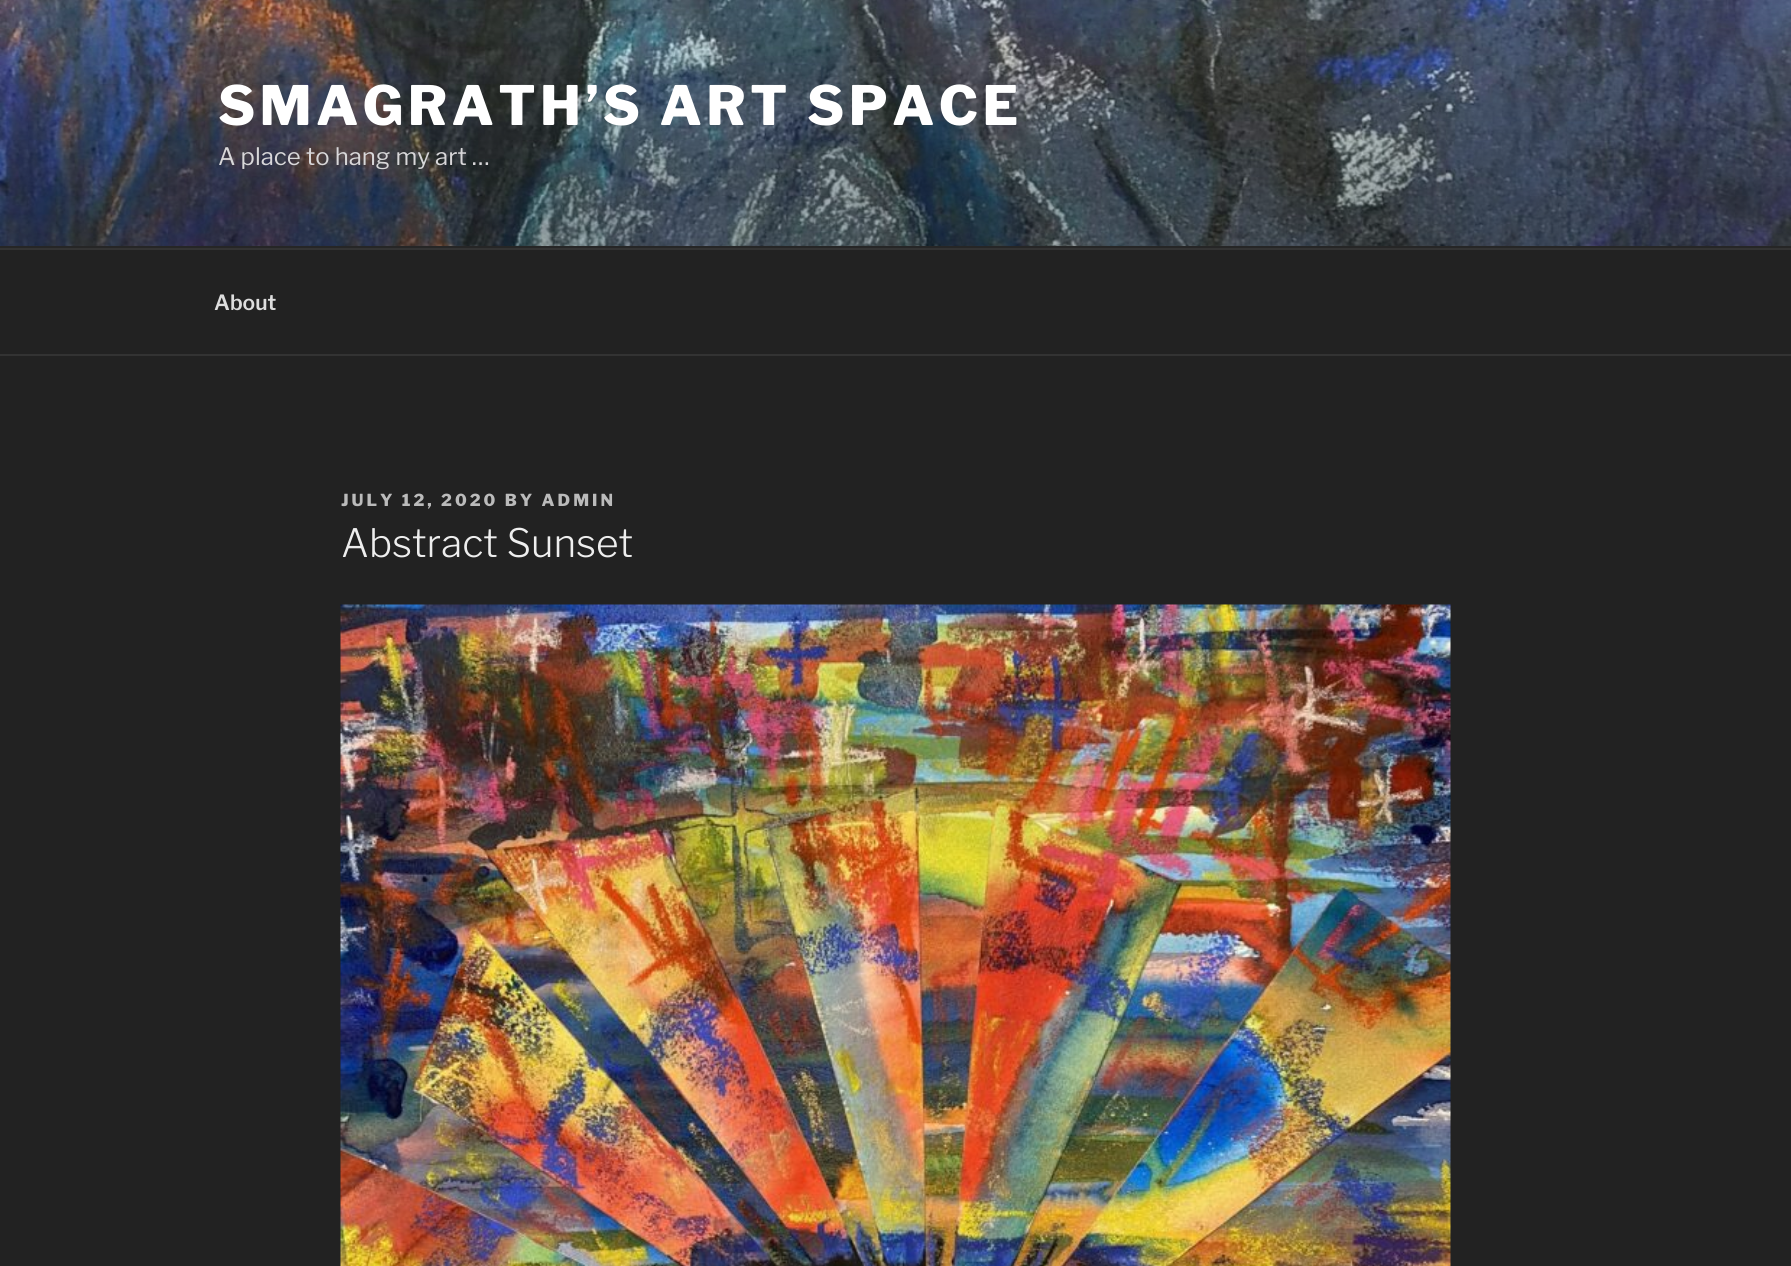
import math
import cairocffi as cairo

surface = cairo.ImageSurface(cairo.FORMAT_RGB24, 1791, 1266)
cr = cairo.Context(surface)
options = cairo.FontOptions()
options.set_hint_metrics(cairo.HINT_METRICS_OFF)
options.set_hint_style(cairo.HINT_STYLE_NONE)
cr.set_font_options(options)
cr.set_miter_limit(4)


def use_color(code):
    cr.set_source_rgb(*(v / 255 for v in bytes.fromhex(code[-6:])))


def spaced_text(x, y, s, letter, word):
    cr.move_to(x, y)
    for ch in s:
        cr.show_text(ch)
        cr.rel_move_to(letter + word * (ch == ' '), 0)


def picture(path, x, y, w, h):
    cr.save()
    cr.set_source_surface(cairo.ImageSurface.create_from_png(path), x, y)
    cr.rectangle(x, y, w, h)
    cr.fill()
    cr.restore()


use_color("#222222")
cr.paint()
use_color("#262626")
cr.rectangle(0, 246, 1791, 2)
cr.fill()
picture("img1.png", 0, 0, 1791, 246)
cr.select_font_face("Libre Franklin Thin")
cr.set_font_size(54)
use_color("#ffffff")
spaced_text(218, 125, "SMAGRATH’S ART SPACE", 4.3, 0)
cr.select_font_face("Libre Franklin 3 Thin")
cr.set_font_size(24)
use_color("#d8d7d9")
cr.move_to(218, 165)
cr.show_text("A place to hang my art …")
use_color("#333333")
cr.rectangle(0, 248, 1791, 2)
cr.fill()
cr.rectangle(0, 354, 1791, 2)
cr.fill()
cr.select_font_face("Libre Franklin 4 Thin")
cr.set_font_size(21)
use_color("#dddddd")
cr.move_to(214, 310)
cr.show_text("About")
cr.select_font_face("Libre Franklin Thin")
cr.set_font_size(16.5)
use_color("#bbbbbb")
spaced_text(341, 506, "JULY 12, 2020 BY ADMIN", 3, 0)
cr.select_font_face("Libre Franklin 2 Thin")
cr.set_font_size(39)
use_color("#eeeeee")
cr.move_to(341, 557)
cr.show_text("Abstract Sunset")
picture("img2.png", 340, 604, 1111, 662)
surface.write_to_png("result.png")
